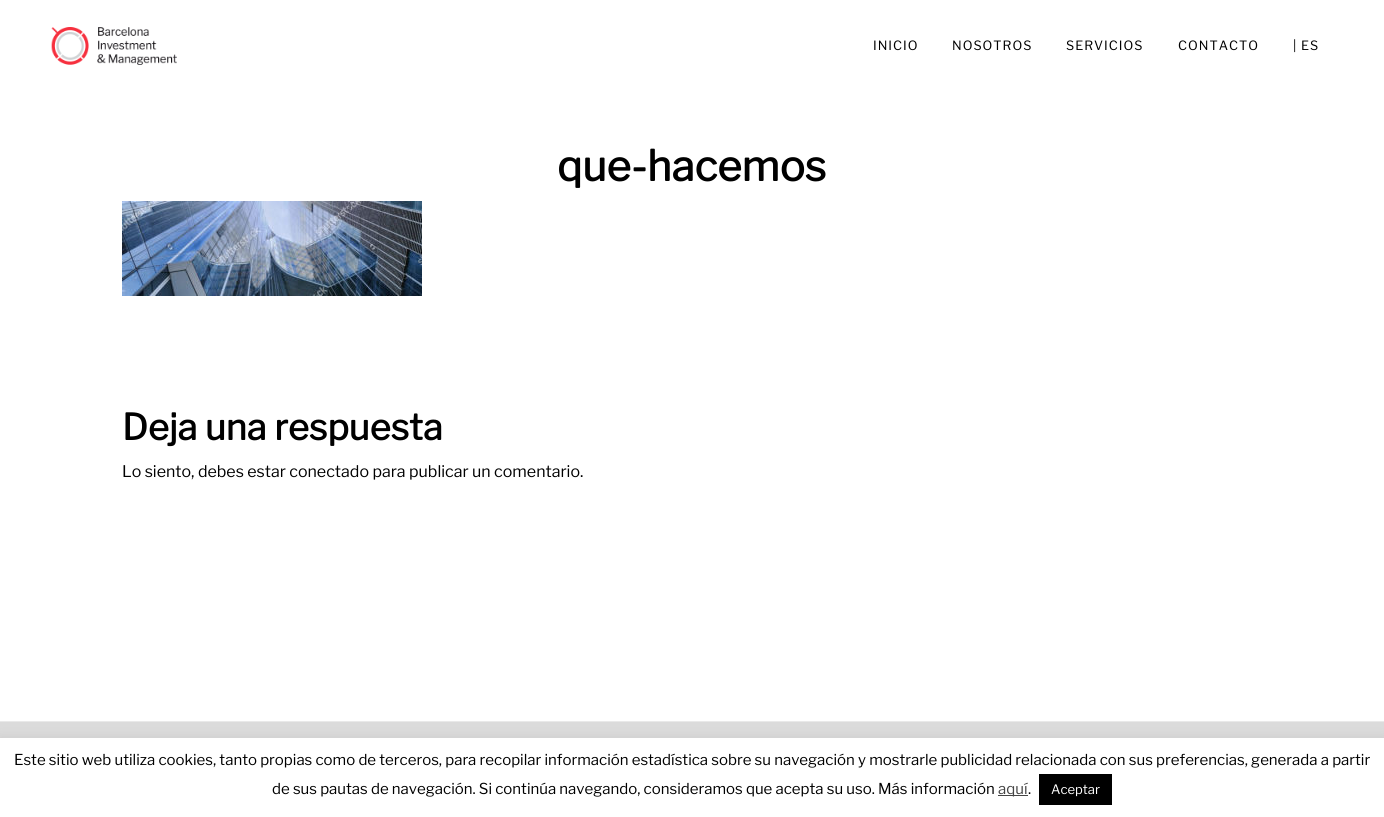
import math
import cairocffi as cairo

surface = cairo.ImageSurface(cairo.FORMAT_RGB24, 1384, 817)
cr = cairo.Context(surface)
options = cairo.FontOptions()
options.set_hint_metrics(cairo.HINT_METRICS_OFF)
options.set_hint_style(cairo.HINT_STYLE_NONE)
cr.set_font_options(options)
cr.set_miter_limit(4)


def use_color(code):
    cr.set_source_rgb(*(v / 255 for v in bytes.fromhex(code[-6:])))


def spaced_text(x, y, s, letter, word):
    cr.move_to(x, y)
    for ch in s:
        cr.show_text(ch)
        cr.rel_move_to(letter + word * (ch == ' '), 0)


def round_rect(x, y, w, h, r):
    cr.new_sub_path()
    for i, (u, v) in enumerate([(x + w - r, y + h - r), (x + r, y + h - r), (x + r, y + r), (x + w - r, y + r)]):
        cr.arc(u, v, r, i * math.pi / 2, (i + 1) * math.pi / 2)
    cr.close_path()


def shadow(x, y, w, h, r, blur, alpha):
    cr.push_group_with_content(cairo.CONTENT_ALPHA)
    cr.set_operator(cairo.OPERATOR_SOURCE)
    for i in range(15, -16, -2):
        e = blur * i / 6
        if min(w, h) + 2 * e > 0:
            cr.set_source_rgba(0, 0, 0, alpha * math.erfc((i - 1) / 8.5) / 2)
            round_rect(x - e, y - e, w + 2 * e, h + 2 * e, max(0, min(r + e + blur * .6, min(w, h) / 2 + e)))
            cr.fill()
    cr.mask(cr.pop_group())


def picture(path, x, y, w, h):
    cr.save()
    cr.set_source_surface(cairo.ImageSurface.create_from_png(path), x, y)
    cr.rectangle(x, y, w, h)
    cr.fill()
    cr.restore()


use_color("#ffffff")
cr.paint()
picture("img1.png", 51, 27, 126, 38)
cr.select_font_face("Libre Franklin Thin")
cr.set_font_size(12.75)
use_color("#000000")
spaced_text(873, 50, "INICIO", 1, 0)
spaced_text(952, 50, "NOSOTROS", 1, 0)
spaced_text(1066, 50, "SERVICIOS", 1, 0)
spaced_text(1178, 50, "CONTACTO", 1, 0)
spaced_text(1293, 50, "| ES", 1, 0)
cr.select_font_face("Libre Franklin", cairo.FONT_SLANT_NORMAL, cairo.FONT_WEIGHT_BOLD)
cr.set_font_size(42)
cr.move_to(557, 181)
cr.show_text("que-hacemos")
picture("img2.png", 122, 201, 300, 95)
cr.set_font_size(36)
cr.move_to(122, 440)
cr.show_text("Deja una respuesta")
cr.select_font_face("Libre Franklin Thin")
cr.set_font_size(16)
cr.move_to(122, 477)
cr.show_text("Lo siento, debes estar conectado para publicar un comentario.")
use_color("#dbdbdb")
cr.rectangle(0, 722, 1384, 16)
cr.fill()
use_color("#e9e9e9")
cr.rectangle(0, 721, 1384, 1)
cr.fill()
use_color("#acabab")
shadow(0, 737, 1384, 79, 0, 5, 0.3)
use_color("#ffffff")
cr.rectangle(0, 738, 1384, 79)
cr.fill()
cr.set_font_size(15)
use_color("#000000")
cr.move_to(14, 765)
cr.show_text("Este sitio web utiliza cookies, tanto propias como de terceros, para recopilar información estadística sobre su navegación y mostrarle publicidad relacionada con sus preferencias, generada a partir")
cr.move_to(272, 794)
cr.show_text("de sus pautas de navegación. Si continúa navegando, consideramos que acepta su uso. Más información")
use_color("#444444")
cr.rectangle(998, 795, 30, 1)
cr.fill()
cr.move_to(998, 794)
cr.show_text("aquí")
use_color("#000000")
cr.move_to(1028, 794)
cr.show_text(".")
cr.rectangle(1039, 774, 73, 31)
cr.fill()
cr.set_font_size(13)
use_color("#ffffff")
cr.move_to(1051, 794)
cr.show_text("Aceptar")
surface.write_to_png("result.png")
